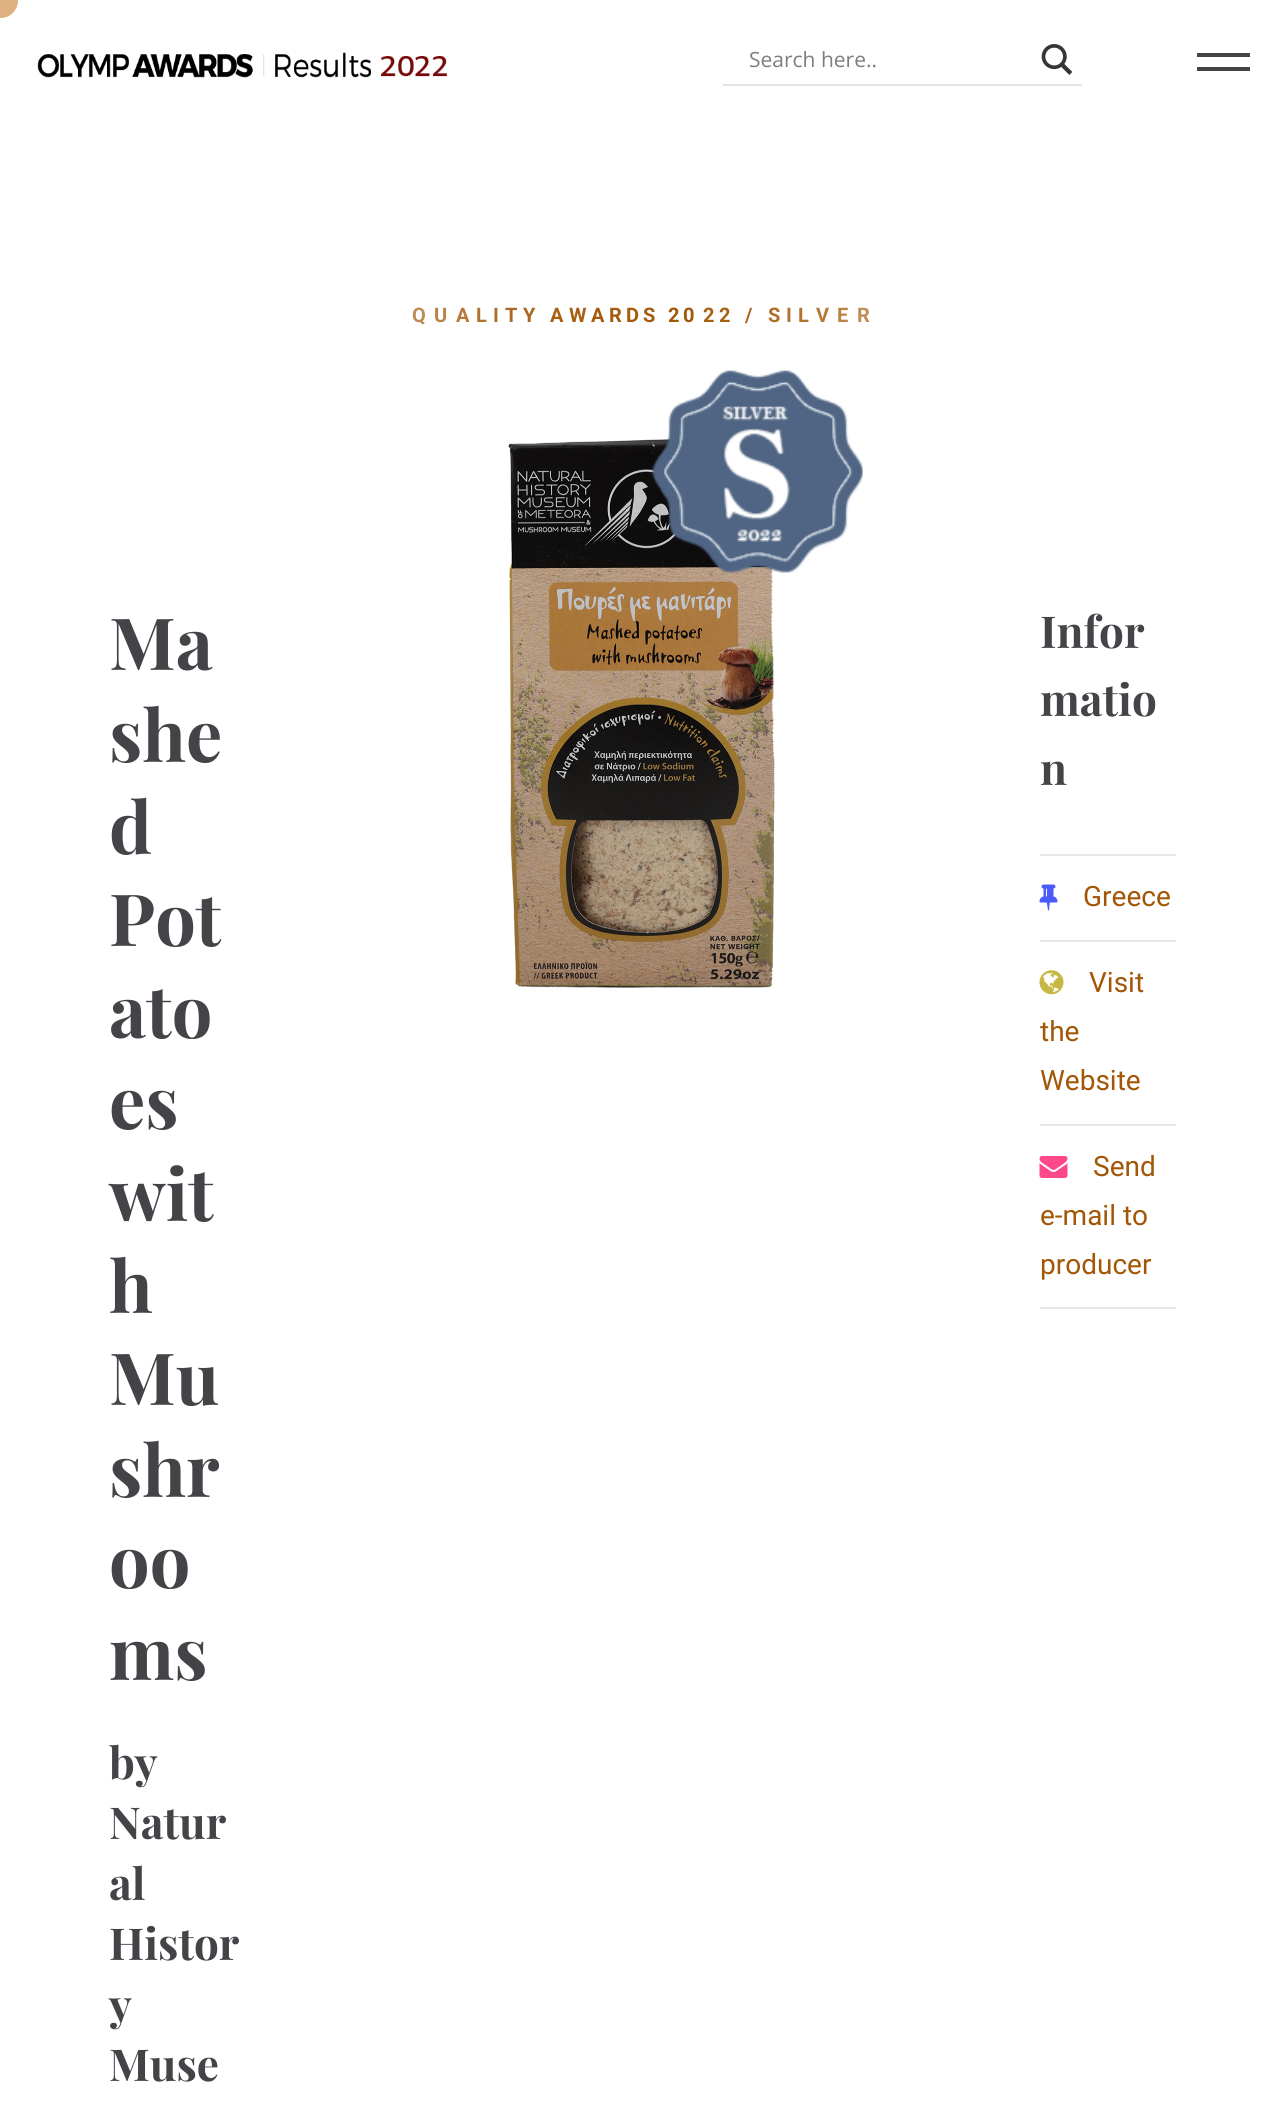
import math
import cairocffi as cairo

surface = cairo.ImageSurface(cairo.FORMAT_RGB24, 1284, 2109)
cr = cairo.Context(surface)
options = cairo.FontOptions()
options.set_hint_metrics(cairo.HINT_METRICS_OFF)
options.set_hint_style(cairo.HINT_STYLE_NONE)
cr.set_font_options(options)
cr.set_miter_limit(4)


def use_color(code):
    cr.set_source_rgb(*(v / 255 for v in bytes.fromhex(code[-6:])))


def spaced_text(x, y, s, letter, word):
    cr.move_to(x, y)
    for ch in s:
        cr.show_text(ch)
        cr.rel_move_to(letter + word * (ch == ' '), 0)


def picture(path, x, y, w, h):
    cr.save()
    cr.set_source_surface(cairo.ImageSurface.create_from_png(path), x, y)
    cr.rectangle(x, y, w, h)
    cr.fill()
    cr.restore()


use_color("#ffffff")
cr.paint()
use_color("#dfb180")
cr.arc(0.5, 0.5, 17.5, 0, 2 * math.pi)
cr.fill()
picture("img1.png", 37, 52, 410, 26)
use_color("#e4e4e4")
cr.new_path()
cr.move_to(723, 84)
cr.line_to(723, 86)
cr.line_to(1082, 86)
cr.line_to(1082, 37)
cr.line_to(1082, 84)
cr.close_path()
cr.fill()
cr.select_font_face("Open Sans")
cr.set_font_size(21)
use_color("#7d7d7d")
cr.move_to(749, 67)
cr.show_text("Search here..")
picture("img2.png", 1041, 44, 32, 31)
use_color("#444444")
cr.rectangle(1197, 53, 53, 4)
cr.fill()
cr.rectangle(1197, 67, 53, 4)
cr.fill()
cr.select_font_face("Roboto", cairo.FONT_SLANT_NORMAL, cairo.FONT_WEIGHT_BOLD)
cr.set_font_size(20)
use_color("#c08c56")
spaced_text(412, 322, "Q", 4, 0)
use_color("#ba8247")
spaced_text(434, 322, "U", 4, 0)
use_color("#b6793a")
spaced_text(456, 322, "A", 4, 0)
use_color("#b27230")
spaced_text(476, 322, "L", 4, 0)
use_color("#af6e29")
spaced_text(493, 322, "I", 4, 0)
use_color("#ad6923")
spaced_text(505, 322, "T", 4, 0)
use_color("#ab651c")
spaced_text(523, 322, "Y", 4, 0)
use_color("#a85f14")
spaced_text(550, 322, "A", 4, 0)
spaced_text(569, 322, "W", 4, 0)
use_color("#a55a0c")
spaced_text(591, 322, "A", 4, 0)
spaced_text(609, 322, "R", 4, 0)
spaced_text(626, 322, "D", 4, 0)
spaced_text(643, 322, "S", 4, 0)
use_color("#a25606")
spaced_text(668, 322, "2", 4, 0)
spaced_text(683, 322, "0", 4, 0)
use_color("#a85f14")
spaced_text(703, 322, "2", 4, 0)
spaced_text(719, 322, "2", 4, 0)
use_color("#ab651c")
spaced_text(745, 322, "/", 4, 0)
use_color("#af6e29")
spaced_text(768, 322, "S", 4, 0)
use_color("#b27230")
spaced_text(786, 322, "I", 4, 0)
spaced_text(798, 322, "L", 4, 0)
use_color("#b6793a")
spaced_text(816, 322, "V", 4, 0)
use_color("#ba8247")
spaced_text(837, 322, "E", 4, 0)
use_color("#c08c56")
spaced_text(857, 322, "R", 4, 0)
picture("img4.png", 508, 438, 267, 550)
picture("img3.png", 652, 370, 211, 203)
cr.select_font_face("Playfair Display", cairo.FONT_SLANT_NORMAL, cairo.FONT_WEIGHT_BOLD)
cr.set_font_size(72)
use_color("#424447")
cr.move_to(109, 670)
cr.show_text("Ma")
cr.move_to(109, 762)
cr.show_text("she")
cr.move_to(109, 854)
cr.show_text("d")
cr.move_to(109, 946)
cr.show_text("Pot")
cr.move_to(109, 1038)
cr.show_text("ato")
cr.move_to(109, 1129)
cr.show_text("es")
cr.move_to(109, 1221)
cr.show_text("wit")
cr.move_to(109, 1313)
cr.show_text("h")
cr.move_to(109, 1405)
cr.show_text("Mu")
cr.move_to(109, 1497)
cr.show_text("shr")
cr.move_to(109, 1588)
cr.show_text("oo")
cr.move_to(109, 1680)
cr.show_text("ms")
cr.set_font_size(44)
cr.move_to(109, 1779)
cr.show_text("by")
cr.move_to(109, 1839)
cr.show_text("Natur")
cr.move_to(109, 1900)
cr.show_text("al")
cr.move_to(109, 1960)
cr.show_text("Histor")
cr.move_to(109, 2021)
cr.show_text("y")
cr.move_to(109, 2081)
cr.show_text("Muse")
use_color("#e8e8e8")
cr.rectangle(1040, 854, 136, 2)
cr.fill()
use_color("#424447")
cr.move_to(1040, 648)
cr.show_text("Infor")
cr.move_to(1040, 716)
cr.show_text("matio")
cr.move_to(1040, 785)
cr.show_text("n")
use_color("#e8e8e8")
cr.rectangle(1040, 940, 136, 2)
cr.fill()
picture("img5.png", 1039, 884, 19, 27)
cr.select_font_face("Roboto")
cr.set_font_size(28)
use_color("#a25606")
cr.move_to(1083, 906)
cr.show_text("Greece")
use_color("#e8e8e8")
cr.rectangle(1040, 1124, 136, 2)
cr.fill()
picture("img6.png", 1039, 970, 25, 25)
use_color("#a25606")
cr.move_to(1089, 992)
cr.show_text("Visit")
cr.move_to(1040, 1041)
cr.show_text("the")
cr.move_to(1040, 1090)
cr.show_text("Website")
use_color("#e8e8e8")
cr.rectangle(1040, 1307, 136, 2)
cr.fill()
picture("img7.png", 1039, 1156, 29, 22)
use_color("#a25606")
cr.move_to(1093, 1176)
cr.show_text("Send")
cr.move_to(1040, 1225)
cr.show_text("e-mail to")
cr.move_to(1040, 1274)
cr.show_text("producer")
surface.write_to_png("result.png")
